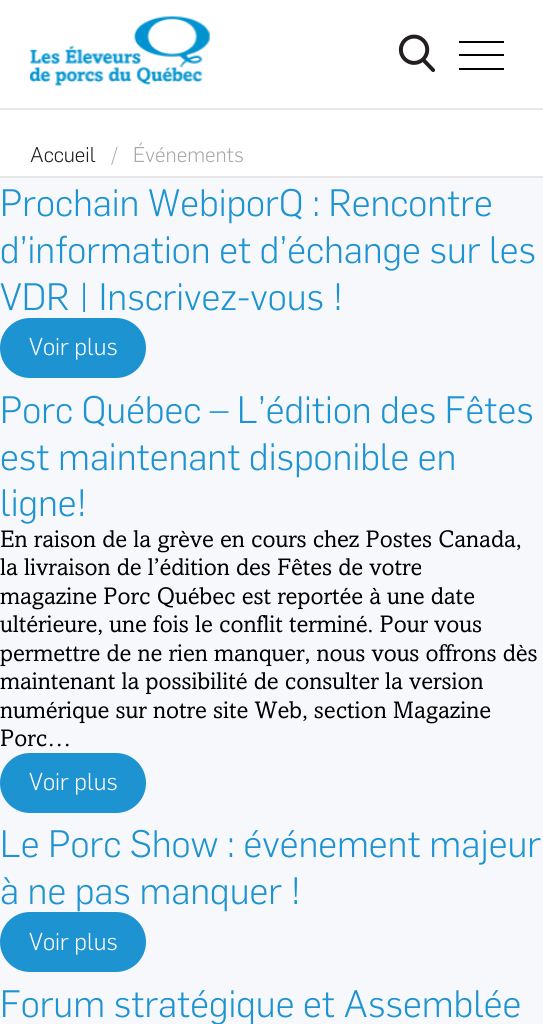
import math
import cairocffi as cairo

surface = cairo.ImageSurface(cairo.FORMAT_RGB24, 543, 1024)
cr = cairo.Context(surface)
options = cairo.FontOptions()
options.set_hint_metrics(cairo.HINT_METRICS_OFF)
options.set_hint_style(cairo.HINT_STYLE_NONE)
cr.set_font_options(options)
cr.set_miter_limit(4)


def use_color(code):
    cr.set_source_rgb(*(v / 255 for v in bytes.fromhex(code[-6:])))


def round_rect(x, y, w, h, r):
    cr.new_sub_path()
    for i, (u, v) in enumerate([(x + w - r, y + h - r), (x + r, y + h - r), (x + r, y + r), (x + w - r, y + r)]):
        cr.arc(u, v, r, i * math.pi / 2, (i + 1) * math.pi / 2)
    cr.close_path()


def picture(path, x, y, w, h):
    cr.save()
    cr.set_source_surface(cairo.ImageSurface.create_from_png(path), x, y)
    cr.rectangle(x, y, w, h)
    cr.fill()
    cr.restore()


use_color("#ffffff")
cr.paint()
use_color("#e7e7e7")
cr.rectangle(0, 108, 543, 2)
cr.fill()
picture("img1.png", 30, 16, 180, 70)
picture("img2.png", 398, 34, 38, 39)
use_color("#000000")
cr.rectangle(459, 54, 45, 2)
cr.fill()
cr.rectangle(459, 41, 45, 2)
cr.fill()
cr.rectangle(459, 68, 45, 2)
cr.fill()
use_color("#f7f8fb")
cr.rectangle(0, 178, 543, 846)
cr.fill()
use_color("#e7e7e7")
cr.rectangle(0, 176, 543, 2)
cr.fill()
cr.select_font_face("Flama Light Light")
cr.set_font_size(21)
use_color("#231f21")
cr.move_to(30, 162)
cr.show_text("Accueil")
use_color("#a7a9ac")
cr.move_to(111, 162)
cr.show_text("/")
cr.move_to(133, 162)
cr.show_text("Événements")
cr.set_font_size(37.5)
use_color("#1d93d2")
cr.move_to(0, 216)
cr.show_text("Prochain WebiporQ : Rencontre")
cr.move_to(0, 263)
cr.show_text("d’information et d’échange sur les")
cr.move_to(0, 310)
cr.show_text("VDR | Inscrivez-vous !")
round_rect(1, 319, 144, 58, 29)
cr.fill_preserve()
cr.stroke()
cr.set_font_size(24)
use_color("#ffffff")
cr.move_to(29, 355)
cr.show_text("Voir plus")
cr.set_font_size(37.5)
use_color("#1d93d2")
cr.move_to(0, 423)
cr.show_text("Porc Québec – L’édition des Fêtes")
cr.move_to(0, 470)
cr.show_text("est maintenant disponible en")
cr.move_to(0, 516)
cr.show_text("ligne!")
cr.select_font_face("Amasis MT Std")
cr.set_font_size(24)
use_color("#000000")
cr.move_to(0, 547)
cr.show_text("En raison de la grève en cours chez Postes Canada,")
cr.move_to(0, 575)
cr.show_text("la livraison de l’édition des Fêtes de votre")
cr.move_to(0, 604)
cr.show_text("magazine Porc Québec est reportée à une date")
cr.move_to(0, 632)
cr.show_text("ultérieure, une fois le conflit terminé. Pour vous")
cr.move_to(0, 661)
cr.show_text("permettre de ne rien manquer, nous vous offrons dès")
cr.move_to(0, 689)
cr.show_text("maintenant la possibilité de consulter la version")
cr.move_to(0, 718)
cr.show_text("numérique sur notre site Web, section Magazine")
cr.move_to(0, 746)
cr.show_text("Porc…")
use_color("#1d93d2")
round_rect(1, 754, 144, 58, 29)
cr.fill_preserve()
cr.stroke()
cr.select_font_face("Flama Light Light")
use_color("#ffffff")
cr.move_to(29, 790)
cr.show_text("Voir plus")
cr.set_font_size(37.5)
use_color("#1d93d2")
cr.move_to(0, 857)
cr.show_text("Le Porc Show : événement majeur")
cr.move_to(0, 904)
cr.show_text("à ne pas manquer !")
round_rect(1, 913, 144, 58, 29)
cr.fill_preserve()
cr.stroke()
cr.set_font_size(24)
use_color("#ffffff")
cr.move_to(29, 950)
cr.show_text("Voir plus")
cr.set_font_size(37.5)
use_color("#1d93d2")
cr.move_to(0, 1017)
cr.show_text("Forum stratégique et Assemblée")
surface.write_to_png("result.png")
